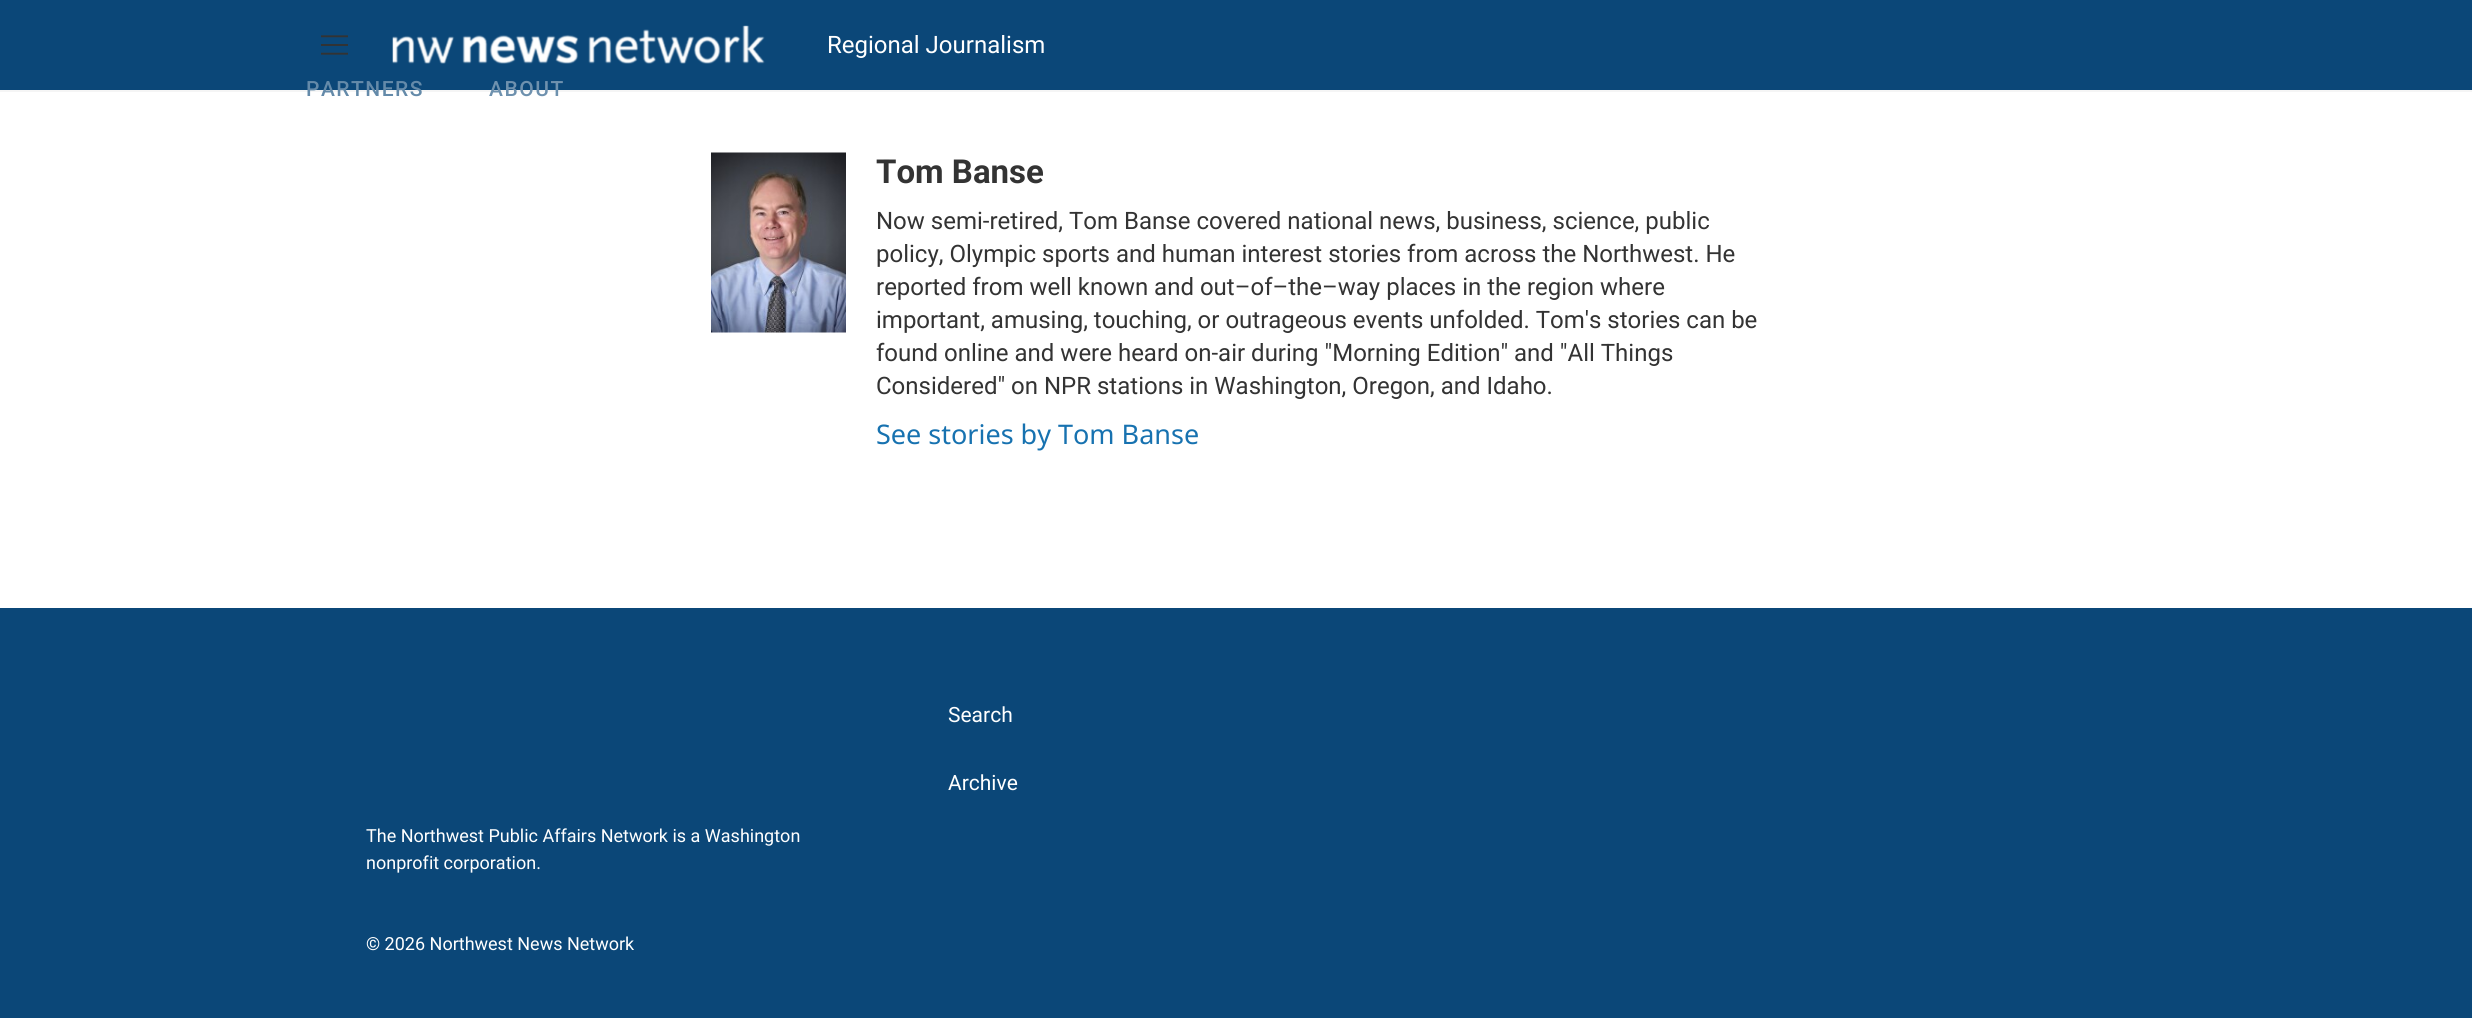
import math
import cairocffi as cairo

surface = cairo.ImageSurface(cairo.FORMAT_RGB24, 2472, 1018)
cr = cairo.Context(surface)
options = cairo.FontOptions()
options.set_hint_metrics(cairo.HINT_METRICS_OFF)
options.set_hint_style(cairo.HINT_STYLE_NONE)
cr.set_font_options(options)
cr.set_miter_limit(4)


def use_color(code):
    cr.set_source_rgb(*(v / 255 for v in bytes.fromhex(code[-6:])))


def spaced_text(x, y, s, letter, word):
    cr.move_to(x, y)
    for ch in s:
        cr.show_text(ch)
        cr.rel_move_to(letter + word * (ch == ' '), 0)


def picture(path, x, y, w, h):
    cr.save()
    cr.set_source_surface(cairo.ImageSurface.create_from_png(path), x, y)
    cr.rectangle(x, y, w, h)
    cr.fill()
    cr.restore()


use_color("#ffffff")
cr.paint()
use_color("#0b4778")
cr.rectangle(0, 0, 2472, 90)
cr.fill()
use_color("#f5f5f5")
cr.rectangle(0, 90, 2472, 2)
cr.fill()
picture("img1.png", 321, 35, 27, 20)
picture("img2.png", 392, 25, 373, 39)
cr.select_font_face("Roboto")
cr.set_font_size(24)
use_color("#ffffff")
cr.move_to(827, 53)
cr.show_text("Regional Journalism")
cr.select_font_face("Roboto Medium")
cr.set_font_size(21)
use_color("#648aa9")
spaced_text(306, 96, "PARTNERS", 1.5, 0)
use_color("#6e91ae")
spaced_text(489, 96, "ABOUT", 1.5, 0)
picture("img3.png", 711, 152, 135, 181)
cr.select_font_face("Roboto", cairo.FONT_SLANT_NORMAL, cairo.FONT_WEIGHT_BOLD)
cr.set_font_size(33)
use_color("#333333")
cr.move_to(876, 183)
cr.show_text("Tom Banse")
cr.select_font_face("Roboto")
cr.set_font_size(24)
cr.move_to(876, 229)
cr.show_text("Now semi-retired, Tom Banse covered national news, business, science, public")
cr.move_to(876, 262)
cr.show_text("policy, Olympic sports and human interest stories from across the Northwest. He")
cr.move_to(876, 295)
cr.show_text("reported from well known and out–of–the–way places in the region where")
cr.move_to(876, 328)
cr.show_text("important, amusing, touching, or outrageous events unfolded. Tom's stories can be")
cr.move_to(876, 361)
cr.show_text("found online and were heard on-air during \"Morning Edition\" and \"All Things")
cr.move_to(876, 394)
cr.show_text("Considered\" on NPR stations in Washington, Oregon, and Idaho.")
cr.select_font_face("Noto Sans")
cr.set_font_size(27)
use_color("#1772b0")
cr.move_to(876, 444)
cr.show_text("See stories by Tom Banse")
use_color("#0b4778")
cr.rectangle(0, 608, 2472, 410)
cr.fill()
cr.select_font_face("Roboto")
cr.set_font_size(21)
use_color("#ffffff")
cr.move_to(948, 722)
cr.show_text("Search")
cr.move_to(948, 790)
cr.show_text("Archive")
cr.set_font_size(18)
cr.move_to(366, 842)
cr.show_text("The Northwest Public Affairs Network is a Washington")
cr.move_to(366, 869)
cr.show_text("nonprofit corporation.")
cr.move_to(366, 950)
cr.show_text("© 2026 Northwest News Network")
surface.write_to_png("result.png")
